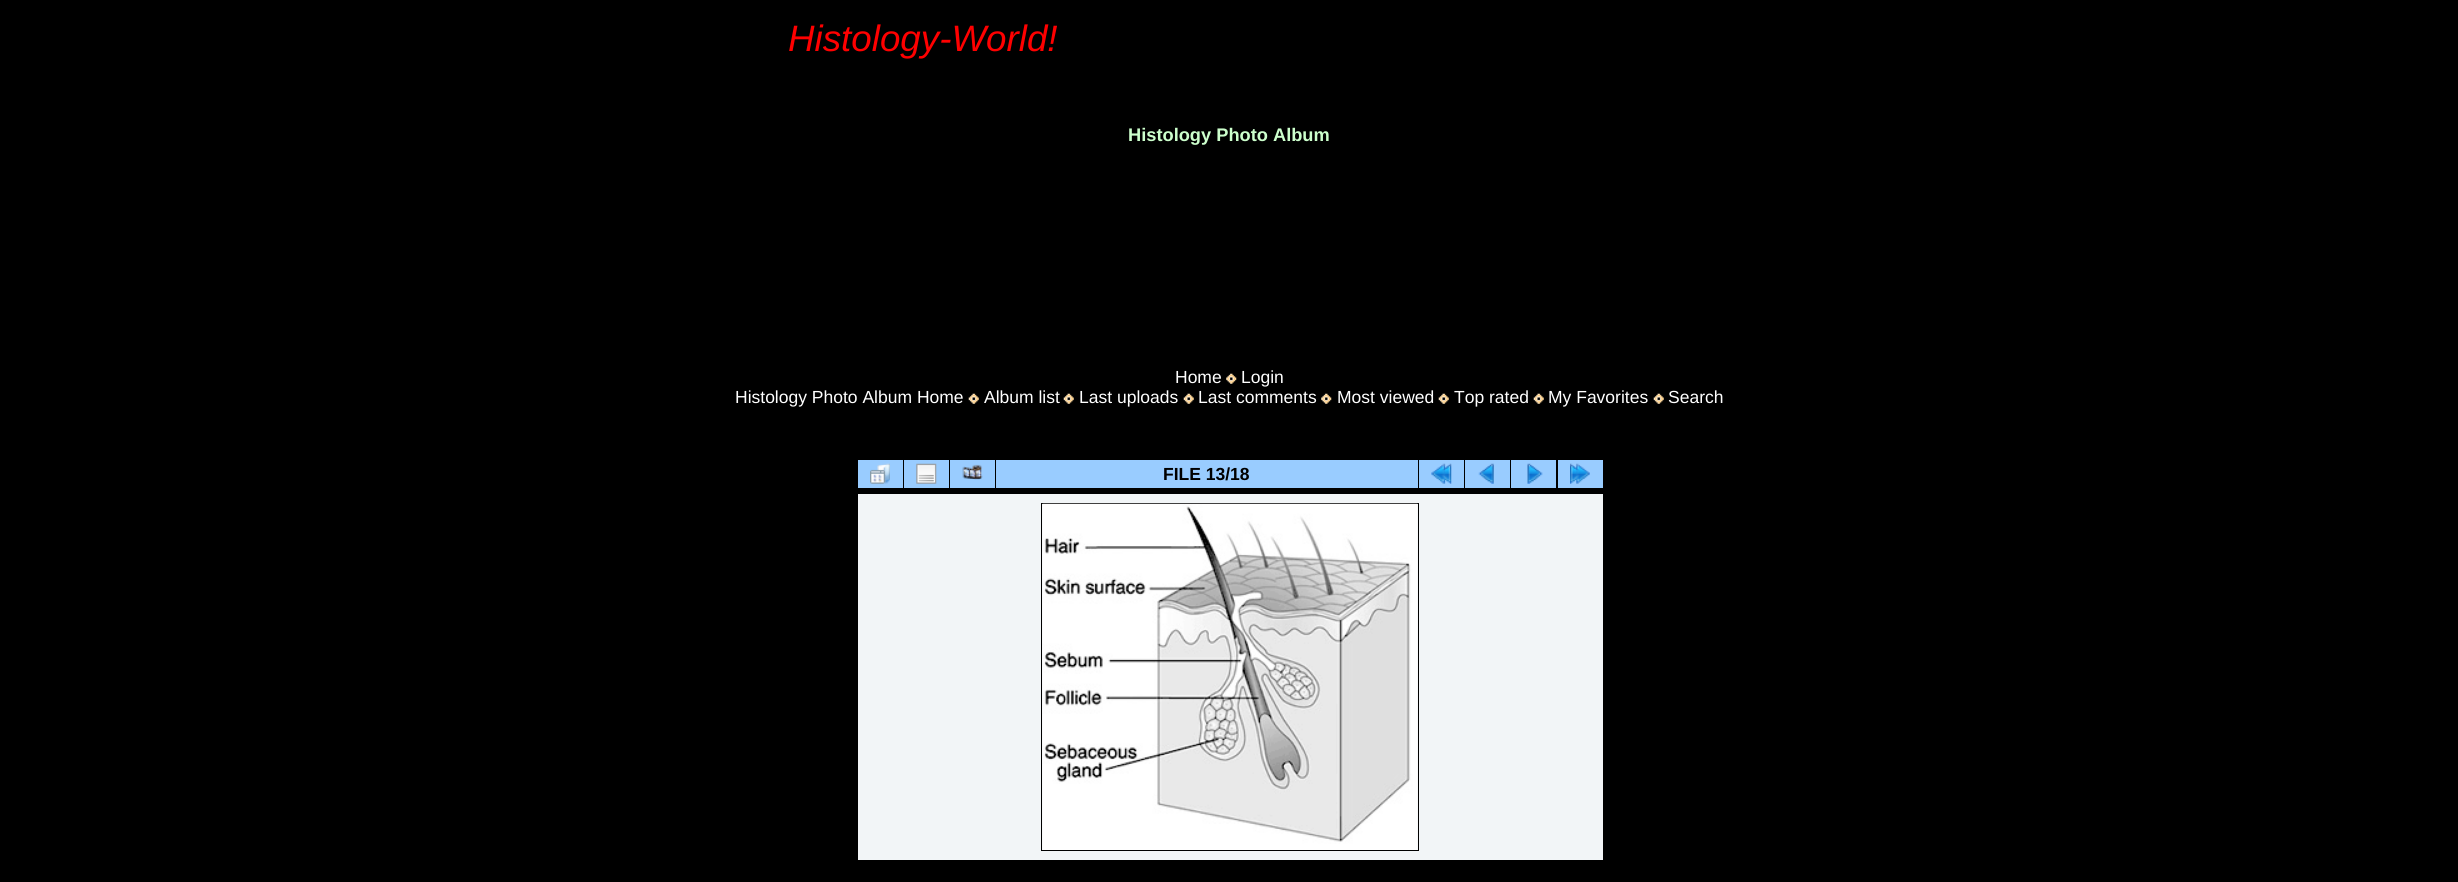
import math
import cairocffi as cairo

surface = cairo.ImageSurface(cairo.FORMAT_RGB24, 2458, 882)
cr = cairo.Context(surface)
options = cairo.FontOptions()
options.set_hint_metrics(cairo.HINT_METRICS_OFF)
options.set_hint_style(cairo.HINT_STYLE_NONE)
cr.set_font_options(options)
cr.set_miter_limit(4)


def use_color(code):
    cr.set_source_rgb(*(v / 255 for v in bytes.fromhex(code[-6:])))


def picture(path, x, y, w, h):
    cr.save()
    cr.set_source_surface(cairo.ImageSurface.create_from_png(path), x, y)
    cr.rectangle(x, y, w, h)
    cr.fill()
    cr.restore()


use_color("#000000")
cr.paint()
cr.select_font_face("Liberation Sans", cairo.FONT_SLANT_ITALIC)
cr.set_font_size(36.75)
use_color("#ff0000")
cr.move_to(788, 51)
cr.show_text("Histology-World!")
cr.select_font_face("Liberation Sans", cairo.FONT_SLANT_NORMAL, cairo.FONT_WEIGHT_BOLD)
cr.set_font_size(18.25)
use_color("#ccffcc")
cr.move_to(1128, 141)
cr.show_text("Histology Photo Album")
cr.select_font_face("Liberation Sans")
cr.set_font_size(17.5)
use_color("#ffffff")
cr.move_to(1175, 383)
cr.show_text("Home")
picture("img1.png", 1226, 373, 11, 11)
cr.move_to(1241, 383)
cr.show_text("Login")
cr.move_to(735, 403)
cr.show_text("Histology Photo Album Home")
picture("img2.png", 968, 393, 11, 11)
cr.move_to(984, 403)
cr.show_text("Album list")
picture("img2.png", 1063, 393, 11, 11)
cr.move_to(1079, 403)
cr.show_text("Last uploads")
picture("img3.png", 1183, 393, 11, 11)
cr.move_to(1198, 403)
cr.show_text("Last comments")
picture("img1.png", 1321, 393, 11, 11)
cr.move_to(1337, 403)
cr.show_text("Most viewed")
picture("img3.png", 1438, 393, 11, 11)
cr.move_to(1454, 403)
cr.show_text("Top rated")
picture("img3.png", 1533, 393, 11, 11)
cr.move_to(1548, 403)
cr.show_text("My Favorites")
picture("img2.png", 1653, 393, 11, 11)
cr.move_to(1668, 403)
cr.show_text("Search")
use_color("#99ccff")
cr.rectangle(858, 460, 45, 28)
cr.fill()
picture("img4.png", 870, 463, 20, 21)
cr.rectangle(904, 460, 45, 28)
cr.fill()
picture("img5.png", 916, 463, 21, 21)
cr.rectangle(950, 460, 45, 28)
cr.fill()
picture("img6.png", 962, 464, 21, 16)
cr.rectangle(996, 460, 422, 28)
cr.fill()
cr.select_font_face("Liberation Sans", cairo.FONT_SLANT_NORMAL, cairo.FONT_WEIGHT_BOLD)
use_color("#000000")
cr.move_to(1163, 480)
cr.show_text("FILE 13/18")
use_color("#99ccff")
cr.rectangle(1419, 460, 45, 28)
cr.fill()
picture("img7.png", 1431, 463, 21, 21)
cr.rectangle(1465, 460, 45, 28)
cr.fill()
picture("img8.png", 1478, 463, 16, 21)
cr.rectangle(1511, 460, 45, 28)
cr.fill()
picture("img9.png", 1527, 463, 16, 21)
cr.rectangle(1558, 460, 45, 28)
cr.fill()
picture("img10.png", 1570, 463, 20, 21)
use_color("#f2f5f7")
cr.rectangle(858, 494, 745, 366)
cr.fill()
cr.rectangle(1041.5, 503.5, 377, 347)
use_color("#000000")
cr.set_line_width(1)
cr.stroke()
picture("img11.png", 1042, 503, 376, 347)
surface.write_to_png("result.png")
